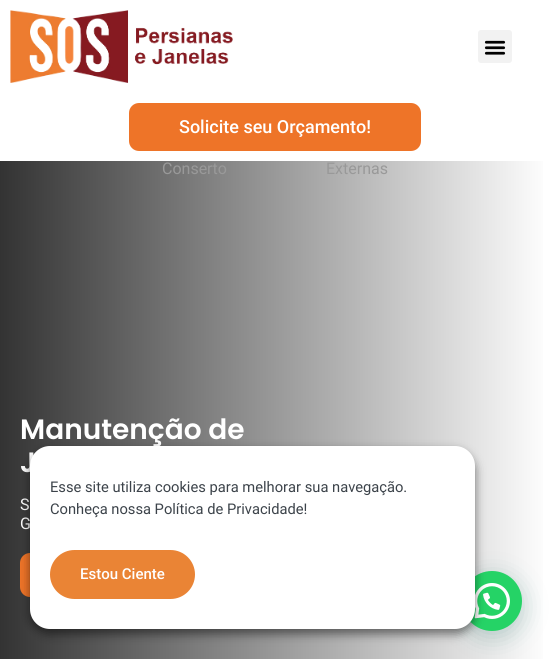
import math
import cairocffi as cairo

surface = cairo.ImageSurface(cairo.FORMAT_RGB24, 550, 659)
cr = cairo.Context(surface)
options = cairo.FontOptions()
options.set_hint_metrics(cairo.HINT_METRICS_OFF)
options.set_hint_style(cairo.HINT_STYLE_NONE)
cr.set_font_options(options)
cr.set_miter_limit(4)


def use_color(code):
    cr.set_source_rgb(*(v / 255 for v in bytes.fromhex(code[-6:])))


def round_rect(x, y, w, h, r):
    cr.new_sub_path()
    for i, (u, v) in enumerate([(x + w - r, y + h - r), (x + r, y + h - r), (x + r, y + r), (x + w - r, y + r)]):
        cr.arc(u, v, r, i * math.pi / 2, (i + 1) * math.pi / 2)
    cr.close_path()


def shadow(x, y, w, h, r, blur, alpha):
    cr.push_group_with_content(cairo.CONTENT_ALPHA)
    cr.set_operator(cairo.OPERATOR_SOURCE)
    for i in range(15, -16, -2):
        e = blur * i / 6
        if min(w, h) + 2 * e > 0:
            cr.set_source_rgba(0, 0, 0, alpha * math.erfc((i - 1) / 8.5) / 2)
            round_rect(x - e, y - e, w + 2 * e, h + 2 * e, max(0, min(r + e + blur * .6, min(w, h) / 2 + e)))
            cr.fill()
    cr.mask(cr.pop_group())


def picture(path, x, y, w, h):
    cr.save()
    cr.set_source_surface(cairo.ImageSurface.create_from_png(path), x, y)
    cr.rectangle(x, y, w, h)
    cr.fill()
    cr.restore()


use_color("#ffffff")
cr.paint()
picture("img1.png", 10, 10, 223, 73)
use_color("#f2f2f2")
round_rect(478, 30, 34, 33, 3)
cr.fill()
picture("img2.png", 484, 40, 22, 15)
use_color("#ee7428")
round_rect(129, 103, 292, 48, 10)
cr.fill()
cr.select_font_face("Roboto Medium")
cr.set_font_size(18)
use_color("#ffffff")
cr.move_to(179, 133)
cr.show_text("Solicite seu Orçamento!")
gradient = cairo.LinearGradient(0, 462, 550, 462)
gradient.add_color_stop_rgba(0, 0.2, 0.2, 0.2, 1)
gradient.add_color_stop_rgba(1, 1, 1, 1, 1)
cr.set_source(gradient)
cr.rectangle(0, 161, 543, 498)
cr.fill()
cr.select_font_face("Roboto")
cr.set_font_size(16)
use_color("#999999")
cr.move_to(162, 174)
cr.show_text("Conserto")
cr.move_to(326, 174)
cr.show_text("Externas")
cr.select_font_face("Poppins SemiBold")
cr.set_font_size(28)
use_color("#ffffff")
cr.move_to(20, 439)
cr.show_text("Manutenção de")
cr.move_to(20, 472)
cr.show_text("J")
cr.select_font_face("Roboto")
cr.set_font_size(16)
cr.move_to(20, 510)
cr.show_text("S")
cr.move_to(20, 529)
cr.show_text("G")
use_color("#ee7428")
round_rect(20, 553, 273, 44, 10)
cr.fill()
use_color("#075e54")
shadow(463, 577, 60, 60, 30, 12, 0.24)
use_color("#25d366")
cr.arc(492, 601, 30, 0, 2 * math.pi)
cr.fill()
picture("img3.png", 474, 583, 36, 36)
use_color("#000000")
shadow(30, 451, 445, 183, 20, 5, 0.5)
use_color("#ffffff")
round_rect(30, 446, 445, 183, 20)
cr.fill()
cr.set_font_size(14.7)
use_color("#3c434a")
cr.move_to(50, 492)
cr.show_text("Esse site utiliza cookies para melhorar sua navegação.")
cr.move_to(50, 514)
cr.show_text("Conheça nossa Política de Privacidade!")
use_color("#ea8435")
round_rect(50, 550, 145, 49, 24.5)
cr.fill()
cr.select_font_face("Roboto Medium")
cr.set_font_size(15)
use_color("#ffffff")
cr.move_to(80, 579)
cr.show_text("Estou Ciente")
surface.write_to_png("result.png")
